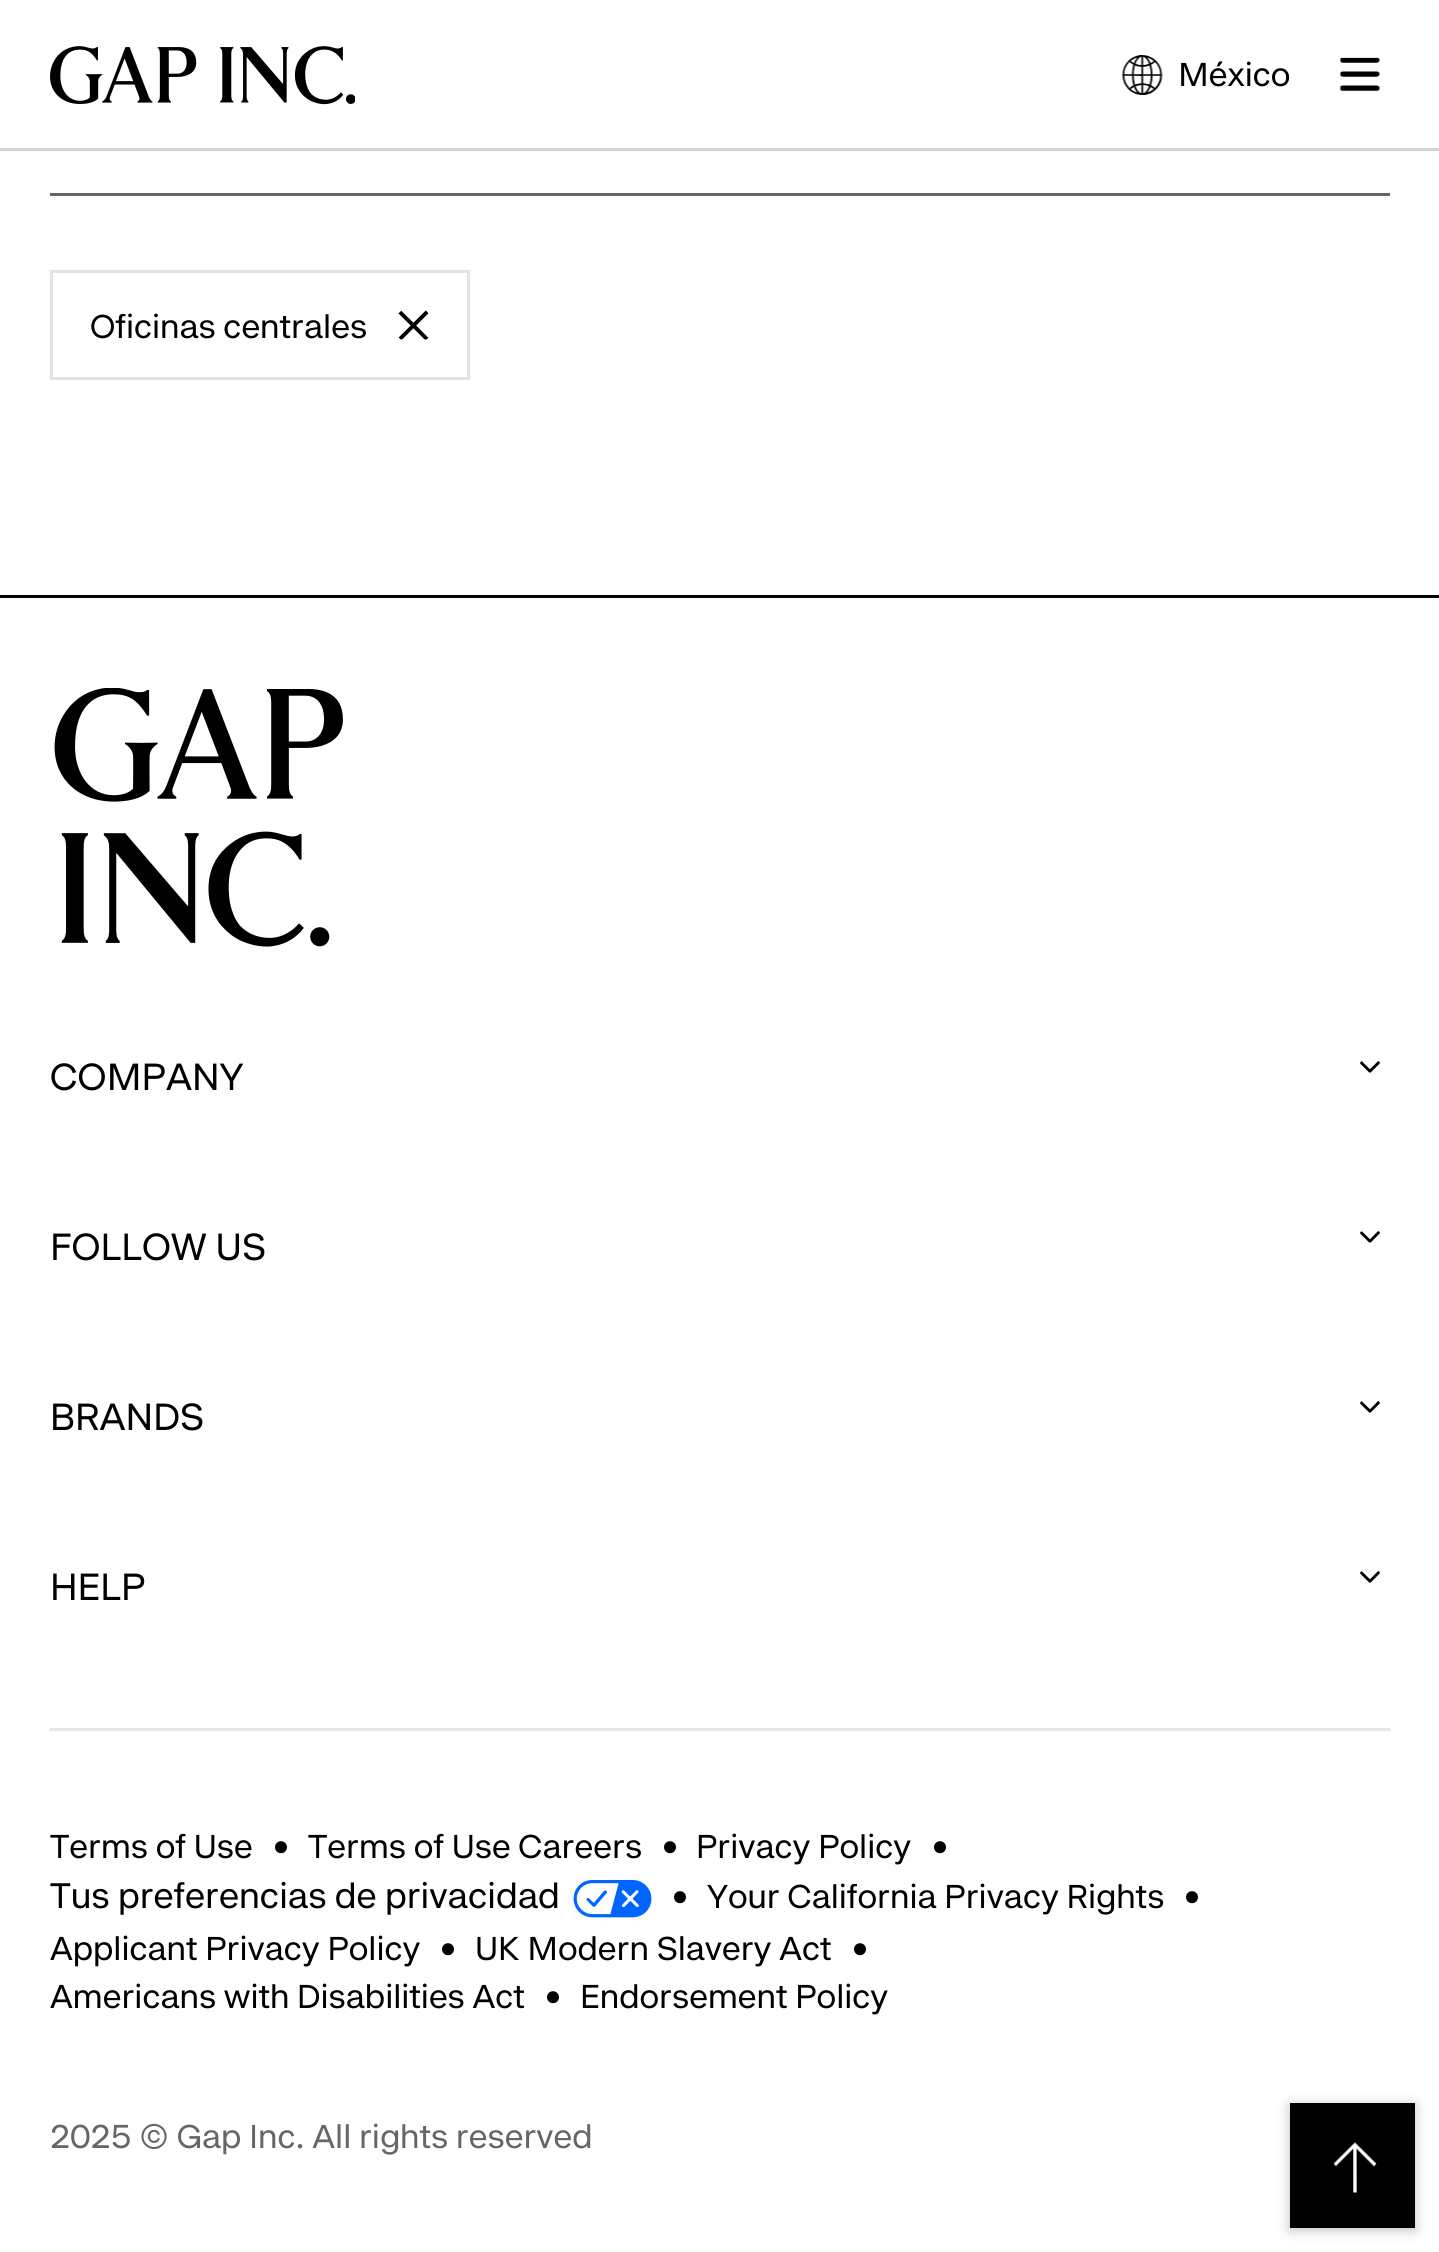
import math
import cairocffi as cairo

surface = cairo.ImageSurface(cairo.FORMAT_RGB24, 1439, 2252)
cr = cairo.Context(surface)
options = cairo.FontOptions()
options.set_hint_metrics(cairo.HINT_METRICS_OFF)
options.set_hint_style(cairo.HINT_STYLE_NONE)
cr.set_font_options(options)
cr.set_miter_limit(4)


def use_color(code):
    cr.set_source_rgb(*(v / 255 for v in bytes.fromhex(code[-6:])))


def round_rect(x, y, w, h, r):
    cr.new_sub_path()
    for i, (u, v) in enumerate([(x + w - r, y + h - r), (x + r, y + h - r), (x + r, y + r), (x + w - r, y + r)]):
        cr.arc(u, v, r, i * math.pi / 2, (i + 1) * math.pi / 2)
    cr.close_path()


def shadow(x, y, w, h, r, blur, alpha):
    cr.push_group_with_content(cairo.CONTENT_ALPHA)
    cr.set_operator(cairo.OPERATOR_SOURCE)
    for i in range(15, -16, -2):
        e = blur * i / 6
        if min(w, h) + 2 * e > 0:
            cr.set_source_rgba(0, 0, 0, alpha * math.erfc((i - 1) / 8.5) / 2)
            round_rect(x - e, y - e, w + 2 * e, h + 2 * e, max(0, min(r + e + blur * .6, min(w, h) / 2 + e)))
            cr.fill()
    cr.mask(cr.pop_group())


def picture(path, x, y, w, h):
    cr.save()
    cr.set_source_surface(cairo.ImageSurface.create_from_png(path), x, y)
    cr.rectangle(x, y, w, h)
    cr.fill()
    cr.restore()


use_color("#ffffff")
cr.paint()
use_color("#d4d4d4")
cr.rectangle(0, 148, 1439, 3)
cr.fill()
picture("img1.png", 50, 46, 305, 59)
picture("img2.png", 1122, 55, 41, 40)
cr.select_font_face("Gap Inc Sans")
cr.set_font_size(35)
use_color("#000000")
cr.move_to(1178, 86)
cr.show_text("México")
picture("img3.png", 1339, 57, 41, 34)
use_color("#666666")
cr.rectangle(50, 193, 1340, 3)
cr.fill()
cr.rectangle(51.5, 271.5, 417, 107)
use_color("#e4e3e2")
cr.set_line_width(3)
cr.stroke()
use_color("#000000")
cr.move_to(90, 338)
cr.show_text("Oficinas centrales")
picture("img4.png", 398, 310, 31, 30)
cr.rectangle(0, 595, 1439, 3)
cr.fill()
picture("img5.png", 54, 688, 289, 259)
cr.set_font_size(40)
cr.move_to(50, 1090)
cr.show_text("COMPANY")
picture("img6.png", 1360, 1061, 20, 12)
cr.move_to(50, 1260)
cr.show_text("FOLLOW US")
picture("img7.png", 1360, 1231, 20, 12)
cr.move_to(50, 1430)
cr.show_text("BRANDS")
picture("img6.png", 1360, 1401, 20, 12)
cr.move_to(50, 1600)
cr.show_text("HELP")
picture("img6.png", 1360, 1571, 20, 12)
use_color("#e6e6e6")
cr.rectangle(50, 1728, 1340, 3)
cr.fill()
cr.set_font_size(35)
use_color("#000000")
cr.move_to(50, 1858)
cr.show_text("Terms of Use")
cr.set_font_size(40)
cr.move_to(273, 1858)
cr.show_text("•")
cr.set_font_size(35)
cr.move_to(308, 1858)
cr.show_text("Terms of Use Careers")
cr.set_font_size(40)
cr.move_to(662, 1858)
cr.show_text("•")
cr.set_font_size(35)
cr.move_to(696, 1858)
cr.show_text("Privacy Policy")
cr.set_font_size(40)
cr.move_to(932, 1858)
cr.show_text("•")
cr.set_font_size(37.5)
cr.move_to(50, 1908)
cr.show_text("Tus preferencias de privacidad")
picture("img8.png", 573, 1880, 79, 38)
cr.set_font_size(40)
cr.move_to(672, 1908)
cr.show_text("•")
cr.set_font_size(35)
cr.move_to(707, 1908)
cr.show_text("Your California Privacy Rights")
cr.set_font_size(40)
cr.move_to(1184, 1908)
cr.show_text("•")
cr.set_font_size(35)
cr.move_to(50, 1960)
cr.show_text("Applicant Privacy Policy")
cr.set_font_size(40)
cr.move_to(440, 1960)
cr.show_text("•")
cr.set_font_size(35)
cr.move_to(475, 1960)
cr.show_text("UK Modern Slavery Act")
cr.set_font_size(40)
cr.move_to(852, 1960)
cr.show_text("•")
cr.set_font_size(35)
cr.move_to(50, 2008)
cr.show_text("Americans with Disabilities Act")
cr.set_font_size(40)
cr.move_to(545, 2008)
cr.show_text("•")
cr.set_font_size(35)
cr.move_to(580, 2008)
cr.show_text("Endorsement Policy")
use_color("#666666")
cr.move_to(50, 2148)
cr.show_text("2025 © Gap Inc. All rights reserved")
use_color("#000000")
shadow(1290, 2105, 125, 125, 0, 6, 0.25)
use_color("#000000")
cr.rectangle(1290, 2103, 125, 125)
cr.fill()
picture("img9.png", 1333, 2142, 44, 51)
surface.write_to_png("result.png")
